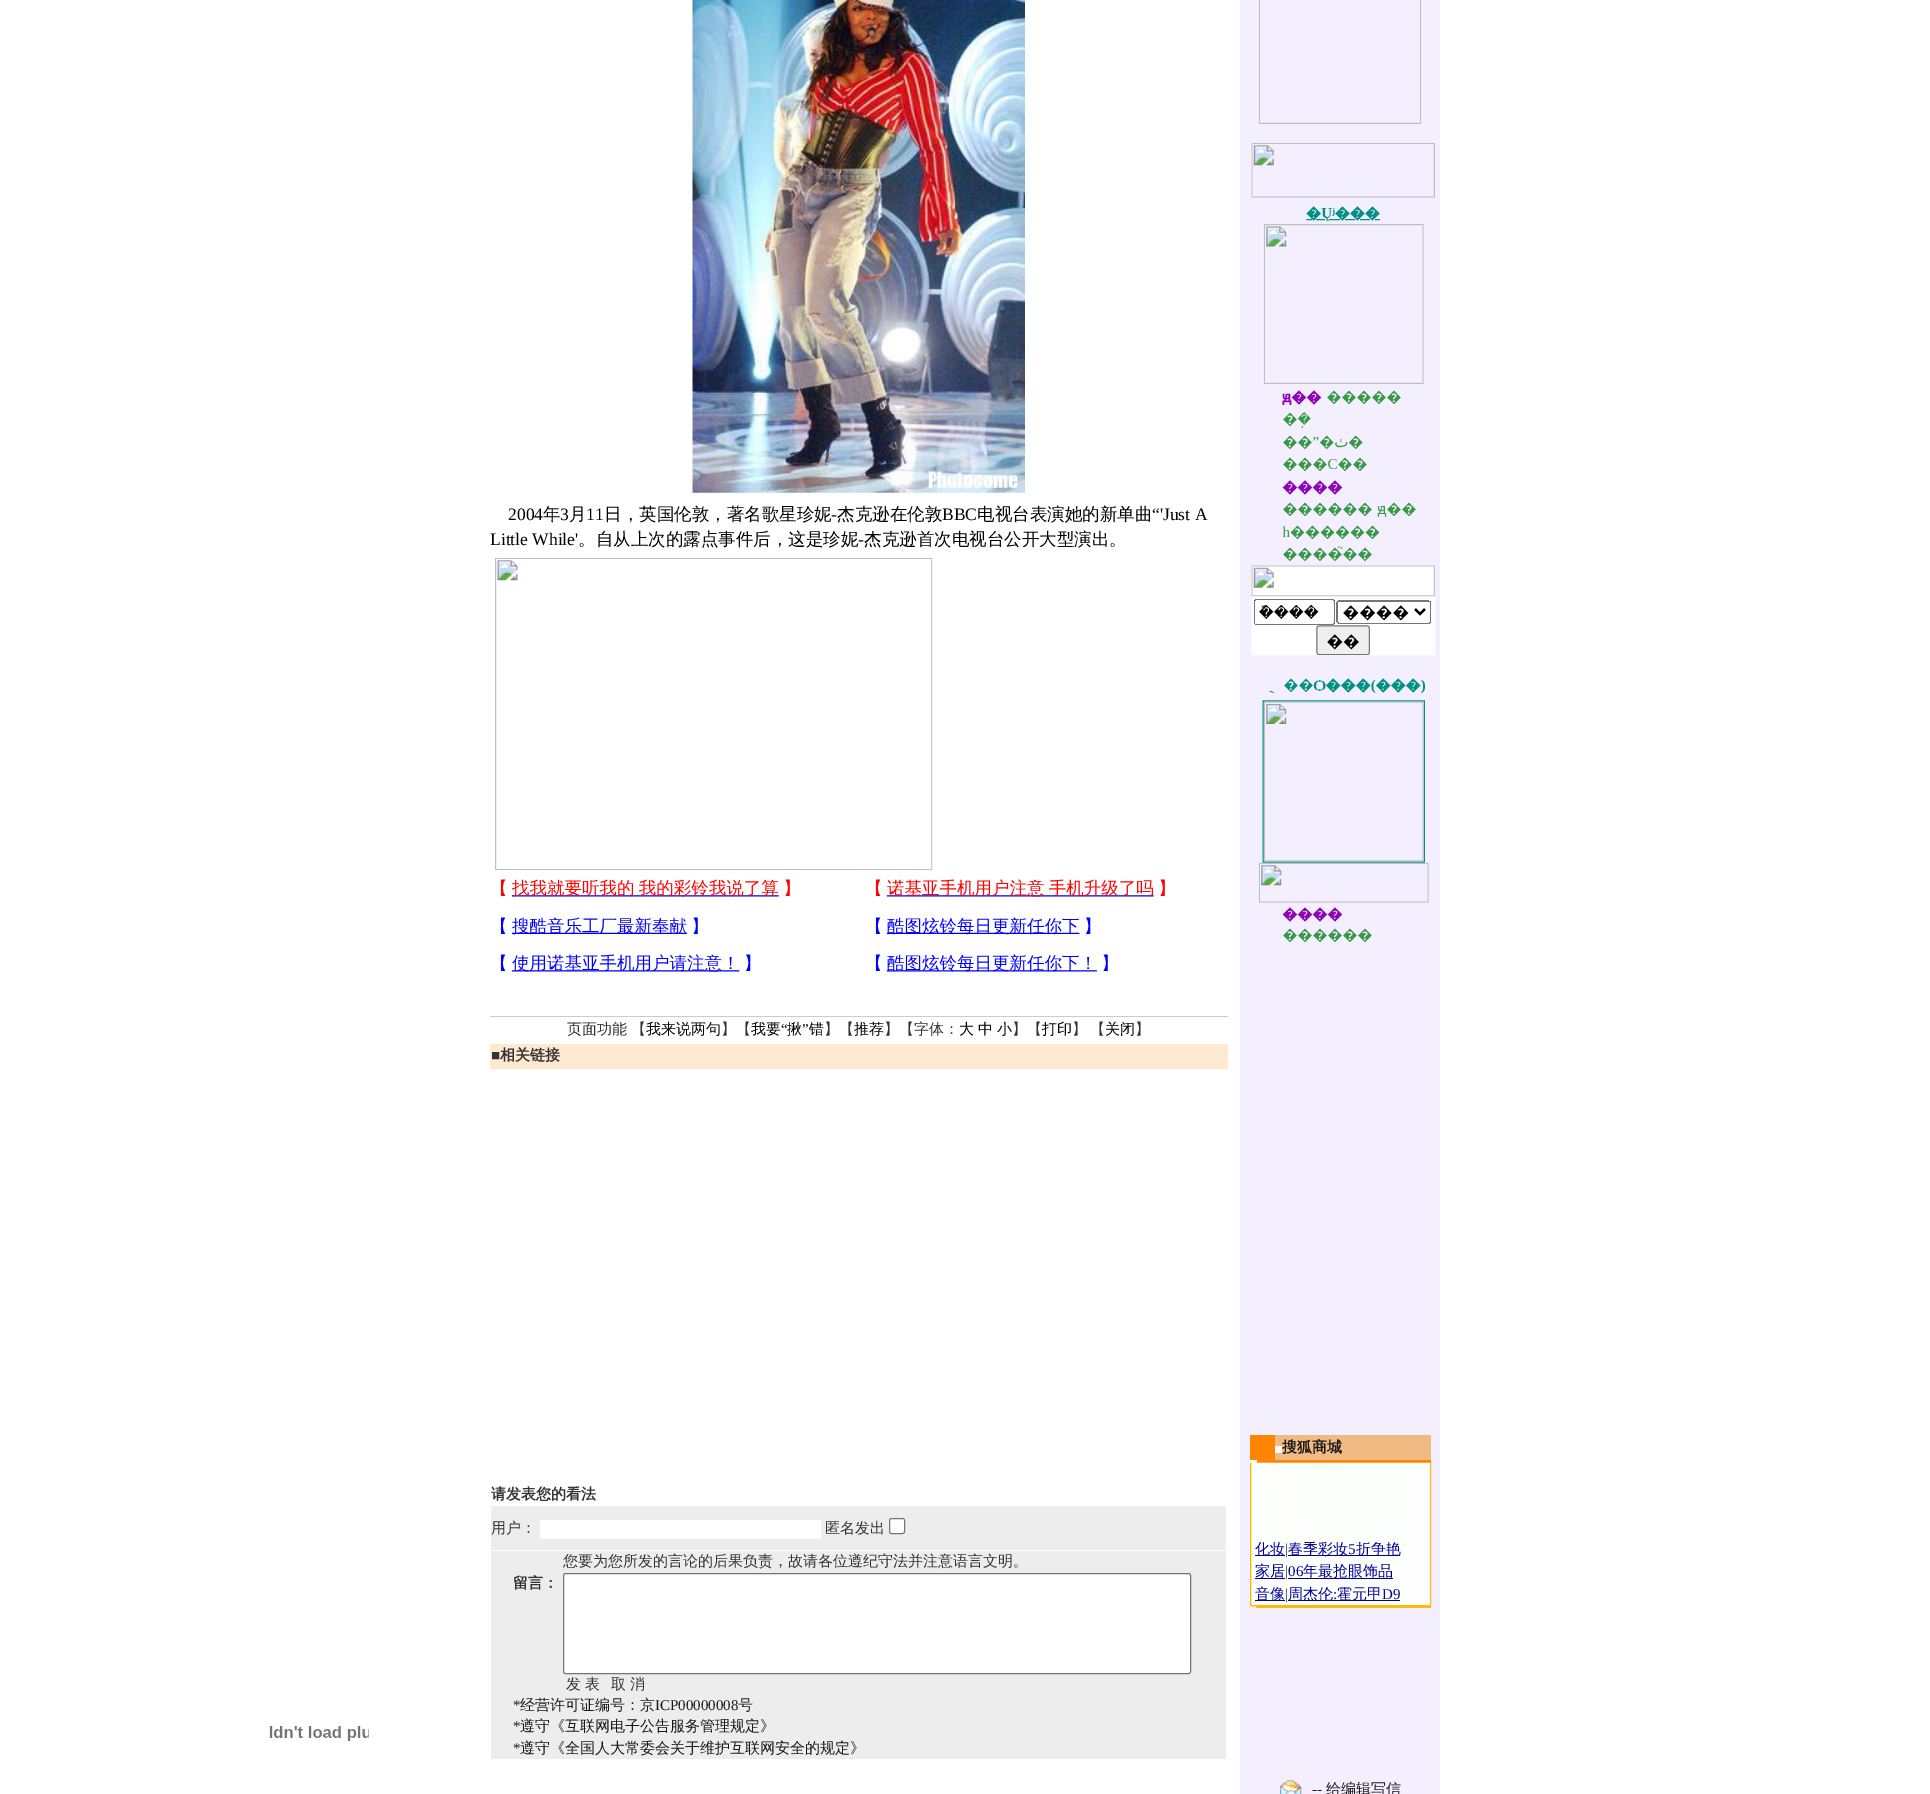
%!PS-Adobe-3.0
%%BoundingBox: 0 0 1930 1794
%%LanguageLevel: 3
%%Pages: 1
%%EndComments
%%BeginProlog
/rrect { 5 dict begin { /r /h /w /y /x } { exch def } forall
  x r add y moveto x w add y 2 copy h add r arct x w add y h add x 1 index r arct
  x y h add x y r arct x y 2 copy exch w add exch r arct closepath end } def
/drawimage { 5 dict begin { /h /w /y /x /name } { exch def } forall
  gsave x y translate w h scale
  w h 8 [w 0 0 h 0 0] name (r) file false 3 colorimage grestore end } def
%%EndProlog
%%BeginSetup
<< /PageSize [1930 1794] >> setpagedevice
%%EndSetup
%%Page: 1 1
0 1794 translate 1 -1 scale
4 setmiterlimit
1 setgray
0 0 1930 1794 rectfill
(images/1.raw) 269 1726 100 15 drawimage
(images/2.raw) 692 0 333 493 drawimage
(images/3.raw) 495 557 438 314 drawimage
(images/4.raw) 500 879 665 56 drawimage
(images/5.raw) 500 954 608 18 drawimage
0.8 setgray
490 1016 738 1 rectfill
1 0.914 0.816 setrgbcolor
490 1044 738 25 rectfill
0.929 setgray
491 1506 735 44 rectfill
1 setgray
540 1520 281 19 rectfill
889.5 1518.5 15 15 2 rrect gsave fill grestore
0.463 setgray
stroke
0.929 setgray
491 1551 735 208 rectfill
1 setgray
563.5 1573.5 627 100 2 rrect gsave fill grestore
0.463 setgray
stroke
0.953 0.937 1 setrgbcolor
1240 0 200 1794 rectfill
(images/6.raw) 1258 0 164 124 drawimage
(images/7.raw) 1251 143 184 800 drawimage
0.996 0.522 0.012 setrgbcolor
1250 1435 25 25 rectfill
0.941 0.729 0.51 setrgbcolor
1275 1435 156 25 rectfill
1 setgray
1275 1446 7 7 rectfill
0.996 0.522 0.012 setrgbcolor
1250 1460 181 3 rectfill
(images/8.raw) 1250 1462 182 144 drawimage
1 setgray
1250 1460 7 3 rectfill
0 0 0.6 setrgbcolor
1255 1555 30 1 rectfill
1288 1555 112 1 rectfill
1255 1578 30 1 rectfill
1288 1578 105 1 rectfill
1255 1600 30 1 rectfill
1288 1600 112 1 rectfill
1 0.729 0.012 setrgbcolor
1250 1605 181 3 rectfill
(images/9.raw) 1250 1606 7 2 drawimage
(images/10.raw) 1280 1780 22 14 drawimage
/LiberationSerif-Regular [17.5 0 0 -17.5 0 0] selectfont
0 setgray
508 520 moveto (2004) show
/WenQuanYiZenHei-Medium [17.5 0 0 -17.5 0 0] selectfont
543 520 moveto (年) show
/LiberationSerif-Regular [17.5 0 0 -17.5 0 0] selectfont
560 520 moveto (3) show
/WenQuanYiZenHei-Medium [17.5 0 0 -17.5 0 0] selectfont
569 520 moveto (月) show
/LiberationSerif-Regular [17.5 0 0 -17.5 0 0] selectfont
586 520 moveto (11) show
/WenQuanYiZenHei-Medium [17.5 0 0 -17.5 0 0] selectfont
604 520 moveto (日，英国伦敦，著名歌星珍妮) show
/LiberationSerif-Regular [17.5 0 0 -17.5 0 0] selectfont
831 520 moveto (-) show
/WenQuanYiZenHei-Medium [17.5 0 0 -17.5 0 0] selectfont
837 520 moveto (杰克逊在伦敦) show
/LiberationSerif-Regular [17.5 0 0 -17.5 0 0] selectfont
942 520 moveto (BBC) show
/WenQuanYiZenHei-Medium [17.5 0 0 -17.5 0 0] selectfont
977 520 moveto (电视台表演她的新单曲) show
/LiberationSerif-Regular [17.5 0 0 -17.5 0 0] selectfont
1152 520 moveto (“'Just A) show
490 545 moveto (Little While') show
/WenQuanYiZenHei-Medium [17.5 0 0 -17.5 0 0] selectfont
578 545 moveto (。自从上次的露点事件后，这是珍妮) show
/LiberationSerif-Regular [17.5 0 0 -17.5 0 0] selectfont
858 545 moveto (-) show
/WenQuanYiZenHei-Medium [17.5 0 0 -17.5 0 0] selectfont
864 545 moveto (杰克逊首次电视台公开大型演出。) show
/WenQuanYiZenHei-Medium [15 0 0 -15 0 0] selectfont
0.2 setgray
567 1034 moveto (页面功能) show
631 1034 moveto (【) show
0 setgray
646 1034 moveto (我来说两句) show
0.2 setgray
721 1034 moveto (】【) show
0 setgray
751 1034 moveto (我要) show
/LiberationSerif-Regular [15 0 0 -15 0 0] selectfont
781 1034 moveto (“) show
/WenQuanYiZenHei-Medium [15 0 0 -15 0 0] selectfont
787 1034 moveto (揪) show
/LiberationSerif-Regular [15 0 0 -15 0 0] selectfont
802 1034 moveto (”) show
/WenQuanYiZenHei-Medium [15 0 0 -15 0 0] selectfont
809 1034 moveto (错) show
0.2 setgray
824 1034 moveto (】【) show
0 setgray
854 1034 moveto (推荐) show
0.2 setgray
884 1034 moveto (】【字体：) show
0 setgray
959 1034 moveto (大) show
978 1034 moveto (中) show
997 1034 moveto (小) show
0.2 setgray
1012 1034 moveto (】【) show
0 setgray
1042 1034 moveto (打印) show
0.2 setgray
1072 1034 moveto -1 0 32 (】 【) widthshow
0 setgray
1105 1034 moveto (关闭) show
0.2 setgray
1135 1034 moveto (】) show
/LiberationSerif-Regular [15 0 0 -15 0 0] selectfont
491 1060 moveto (■) show
/WenQuanYiZenHei-Bold [15 0 0 -15 0 0] selectfont
500 1060 moveto (相关链接) show
491 1499 moveto (请发表您的看法) show
/WenQuanYiZenHei-Medium [15 0 0 -15 0 0] selectfont
491 1533 moveto (用户：) show
825 1533 moveto (匿名发出) show
563 1566 moveto (您要为您所发的言论的后果负责，故请各位遵纪守法并注意语言文明。) show
/WenQuanYiZenHei-Bold [15 0 0 -15 0 0] selectfont
513 1588 moveto (留言：) show
/WenQuanYiZenHei-Medium [15 0 0 -15 0 0] selectfont
566 1689 moveto (发 表) show
611 1689 moveto (取 消) show
/LiberationSerif-Regular [15 0 0 -15 0 0] selectfont
0.098 setgray
513 1710 moveto (*) show
/WenQuanYiZenHei-Medium [15 0 0 -15 0 0] selectfont
520 1710 moveto (经营许可证编号：京) show
/LiberationSerif-Regular [15 0 0 -15 0 0] selectfont
655 1710 moveto (ICP00000008) show
/WenQuanYiZenHei-Medium [15 0 0 -15 0 0] selectfont
738 1710 moveto (号) show
/LiberationSerif-Regular [15 0 0 -15 0 0] selectfont
513 1731 moveto (*) show
/WenQuanYiZenHei-Medium [15 0 0 -15 0 0] selectfont
520 1731 moveto (遵守《互联网电子公告服务管理规定》) show
/LiberationSerif-Regular [15 0 0 -15 0 0] selectfont
513 1753 moveto (*) show
/WenQuanYiZenHei-Medium [15 0 0 -15 0 0] selectfont
520 1753 moveto (遵守《全国人大常委会关于维护互联网安全的规定》) show
/WenQuanYiZenHei-Bold [15 0 0 -15 0 0] selectfont
1282 1452 moveto (搜狐商城) show
/WenQuanYiZenHei-Medium [15 0 0 -15 0 0] selectfont
0 0 0.6 setrgbcolor
1255 1554 moveto (化妆) show
/LiberationSerif-Regular [15 0 0 -15 0 0] selectfont
0.2 setgray
1285 1554 moveto (|) show
/WenQuanYiZenHei-Medium [15 0 0 -15 0 0] selectfont
0 0 0.6 setrgbcolor
1288 1554 moveto (春季彩妆) show
/LiberationSerif-Regular [15 0 0 -15 0 0] selectfont
1348 1554 moveto (5) show
/WenQuanYiZenHei-Medium [15 0 0 -15 0 0] selectfont
1356 1554 moveto (折争艳) show
1255 1576 moveto (家居) show
/LiberationSerif-Regular [15 0 0 -15 0 0] selectfont
0.2 setgray
1285 1576 moveto (|) show
0 0 0.6 setrgbcolor
1288 1576 moveto (06) show
/WenQuanYiZenHei-Medium [15 0 0 -15 0 0] selectfont
1303 1576 moveto (年最抢眼饰品) show
1255 1599 moveto (音像) show
/LiberationSerif-Regular [15 0 0 -15 0 0] selectfont
0.2 setgray
1285 1599 moveto (|) show
/WenQuanYiZenHei-Medium [15 0 0 -15 0 0] selectfont
0 0 0.6 setrgbcolor
1288 1599 moveto (周杰伦) show
/LiberationSerif-Regular [15 0 0 -15 0 0] selectfont
1333 1599 moveto (:) show
/WenQuanYiZenHei-Medium [15 0 0 -15 0 0] selectfont
1337 1599 moveto (霍元甲) show
/LiberationSerif-Regular [15 0 0 -15 0 0] selectfont
1382 1599 moveto (D9) show
0.098 setgray
1312 1794 moveto (--) show
/WenQuanYiZenHei-Medium [15 0 0 -15 0 0] selectfont
1326 1794 moveto (给编辑写信) show
showpage
%%EOF
